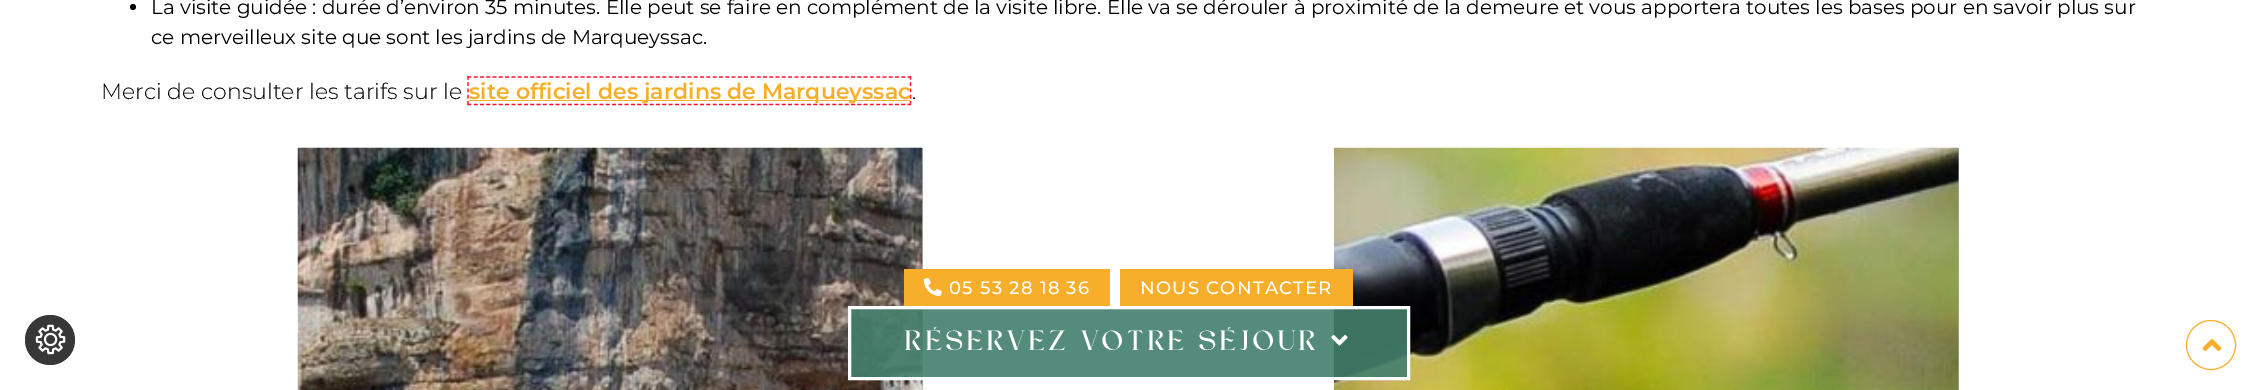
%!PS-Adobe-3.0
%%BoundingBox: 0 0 2256 390
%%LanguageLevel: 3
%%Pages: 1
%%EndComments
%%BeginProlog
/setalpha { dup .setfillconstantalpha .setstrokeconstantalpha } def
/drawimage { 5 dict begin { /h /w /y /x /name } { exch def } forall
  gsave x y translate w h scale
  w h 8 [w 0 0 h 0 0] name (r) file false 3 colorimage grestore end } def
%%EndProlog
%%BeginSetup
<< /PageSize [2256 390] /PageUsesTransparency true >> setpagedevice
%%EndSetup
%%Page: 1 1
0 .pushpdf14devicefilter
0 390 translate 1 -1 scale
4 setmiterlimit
1 setgray
0 0 2256 390 rectfill
0 setgray
newpath 133 7 3 0 360 arc closepath fill
1 0.067 0.169 setrgbcolor
1.2 setlinewidth
[3.75 2.54] 0 setdash
newpath 467.5 77 moveto 911 77 lineto stroke
[3.75 2.5] 0 setdash
newpath 910.5 76 moveto 910.5 105 lineto stroke
[3.75 2.54] 0 setdash
newpath 467.5 104.5 moveto 911 104.5 lineto stroke
[3.75 2.5] 0 setdash
newpath 468 76 moveto 468 105 lineto stroke
0.969 0.682 0.169 setrgbcolor
469 100 441 1 rectfill
0.655 0.761 0.725 setrgbcolor
922 148 1 242 rectfill
(images/1.raw) 297 147 626 243 drawimage
1958 148 1 242 rectfill
(images/2.raw) 1333 147 626 243 drawimage
0.216 setgray
newpath 50 340 25 0 360 arc closepath fill
(images/3.raw) 35 324 31 31 drawimage
0.969 0.682 0.169 setrgbcolor
904 269 206 37 rectfill
(images/4.raw) 923 278 19 18 drawimage
1120 269 233 37 rectfill
0.9 setalpha
0.263 0.494 0.42 setrgbcolor
newpath 849.5 307.5 moveto 1408.5 307.5 lineto 1408.5 378.5 lineto 849.5 378.5 lineto closepath fill
1 setalpha
1 setgray
3 setlinewidth
[] 0 setdash
newpath 849.5 307.5 moveto 1408.5 307.5 lineto 1408.5 378.5 lineto 849.5 378.5 lineto closepath stroke
(images/5.raw) 1331 335 17 11 drawimage
0.969 0.682 0.169 setrgbcolor
1 setlinewidth
newpath 2211 345 24.5 0 360 arc closepath stroke
(images/6.raw) 2202 339 20 12 drawimage
/Montserrat-Regular [20 0 0 -20 0 0] selectfont
0 setgray
151 14 moveto (La visite guidée : durée d’environ 35 minutes. Elle peut se faire en complément de la visite libre. Elle va se dérouler à proximité de la demeure et vous apportera toutes les bases pour en savoir plus sur) show
151 44 moveto (ce merveilleux site que sont les jardins de Marqueyssac.) show
/Montserrat-Light [22 0 0 -22 0 0] selectfont
101 99 moveto (Merci de consulter les tarifs sur le) show
/Montserrat-SemiBold [22 0 0 -22 0 0] selectfont
0.969 0.682 0.169 setrgbcolor
469 99 moveto (site officiel des jardins de Marqueyssac) show
/Montserrat-Light [22 0 0 -22 0 0] selectfont
0 setgray
912 99 moveto (.) show
/Montserrat-Medium [18 0 0 -18 0 0] selectfont
1 setgray
949 294 moveto 1.25 0 (05 53 28 18 36) ashow
1140 294 moveto 1.25 0 (NOUS CONTACTER) ashow
/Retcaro-Regular [26 0 0 -26 0 0] selectfont
905 350 moveto 3.75 0 (RÉSERVEZ VOTRE SÉJOUR) ashow
.poppdf14devicefilter showpage
%%EOF
